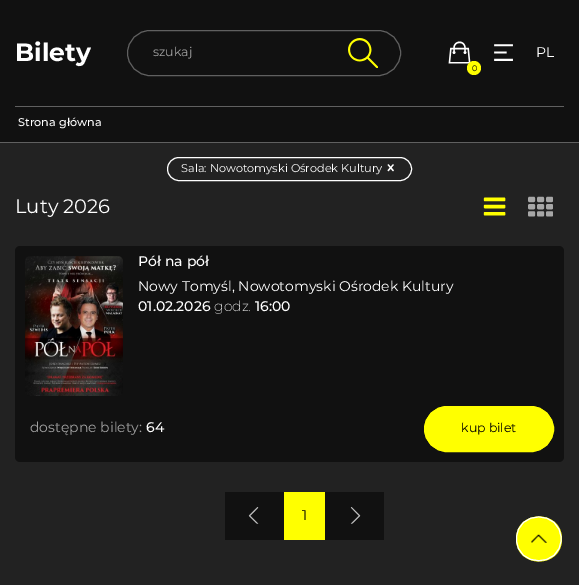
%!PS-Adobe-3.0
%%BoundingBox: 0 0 579 585
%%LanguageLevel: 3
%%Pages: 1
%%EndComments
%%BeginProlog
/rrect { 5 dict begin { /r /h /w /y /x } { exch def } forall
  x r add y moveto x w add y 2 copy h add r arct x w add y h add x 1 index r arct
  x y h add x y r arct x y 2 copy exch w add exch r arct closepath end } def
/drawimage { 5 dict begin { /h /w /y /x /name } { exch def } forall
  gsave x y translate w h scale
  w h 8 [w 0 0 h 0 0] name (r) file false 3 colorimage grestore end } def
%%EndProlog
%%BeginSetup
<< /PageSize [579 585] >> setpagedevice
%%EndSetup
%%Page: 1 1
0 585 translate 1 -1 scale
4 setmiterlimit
0.133 setgray
0 0 579 585 rectfill
0.067 setgray
0 0 579 142 rectfill
0.376 setgray
0 142 579 1 rectfill
127.5 30.5 273 45 22.5 rrect stroke
(images/1.raw) 348 38 30 30 drawimage
(images/2.raw) 494 44 19 17 drawimage
(images/3.raw) 448 41 23 23 drawimage
1 1 0 setrgbcolor
newpath 474 68 7 0 360 arc closepath fill
0.376 setgray
15 106 549 1 rectfill
1 setgray
167.5 157.5 244 23 11.5 rrect stroke
(images/4.raw) 387 164 7 8 drawimage
(images/5.raw) 483 197 23 19 drawimage
(images/6.raw) 528 196 25 21 drawimage
0.067 setgray
15 246 549 216 5 rrect fill
(images/7.raw) 25 256 98 140 drawimage
1 1 0 setrgbcolor
424.5 406.5 129 45 22.5 rrect gsave fill grestore
stroke
0.067 setgray
225 492 159 48 rectfill
(images/8.raw) 248 507 11 17 drawimage
1 1 0 setrgbcolor
284 492 41 48 rectfill
(images/9.raw) 350 507 11 17 drawimage
newpath 562 539 moveto 562 569 516 569 516 539 curveto 516 509 562 509 562 539 curveto closepath fill
1 setgray
newpath 561 539 moveto 561 568 516.5 568 516.5 539 curveto 516.5 509.5 561 509.5 561 539 curveto closepath stroke
(images/10.raw) 531 534 16 9 drawimage
/Montserrat-Thin [25 0 0 -25 0 0] selectfont
15 61 moveto (Bilety) show
/Montserrat-Regular [12.5 0 0 -12.5 0 0] selectfont
0.627 setgray
153 56 moveto (szukaj) show
/Montserrat-Regular [14 0 0 -14 0 0] selectfont
1 setgray
536 57 moveto (PL) show
/Montserrat-Regular [8 0 0 -8 0 0] selectfont
0 setgray
472 71 moveto (0) show
/Montserrat-Medium [11.25 0 0 -11.25 0 0] selectfont
1 setgray
18 126 moveto (Strona główna) show
/Montserrat-Regular [11.25 0 0 -11.25 0 0] selectfont
181 172 moveto (Sala: Nowotomyski Ośrodek Kultury) show
/Montserrat-Regular [19.5 0 0 -19.5 0 0] selectfont
15 213 moveto (Luty 2026) show
/Montserrat-Medium [14 0 0 -14 0 0] selectfont
138 266 moveto (Pół na pół) show
/Montserrat-Regular [14 0 0 -14 0 0] selectfont
138 291 moveto (Nowy Tomyśl, Nowotomyski Ośrodek Kultury) show
/Montserrat-Medium [14 0 0 -14 0 0] selectfont
138 311 moveto (01.02.2026) show
/Montserrat-Light [14 0 0 -14 0 0] selectfont
214 311 moveto (godz.) show
/Montserrat-Medium [14 0 0 -14 0 0] selectfont
255 311 moveto (16:00) show
/Montserrat-Regular [14 0 0 -14 0 0] selectfont
0.627 setgray
30 432 moveto (dostępne bilety:) show
/Montserrat-Medium [14 0 0 -14 0 0] selectfont
1 setgray
146 432 moveto (64) show
/Montserrat-Regular [12.5 0 0 -12.5 0 0] selectfont
0 setgray
461 432 moveto (kup bilet) show
/Montserrat-Regular [14 0 0 -14 0 0] selectfont
302 520 moveto (1) show
showpage
%%EOF
